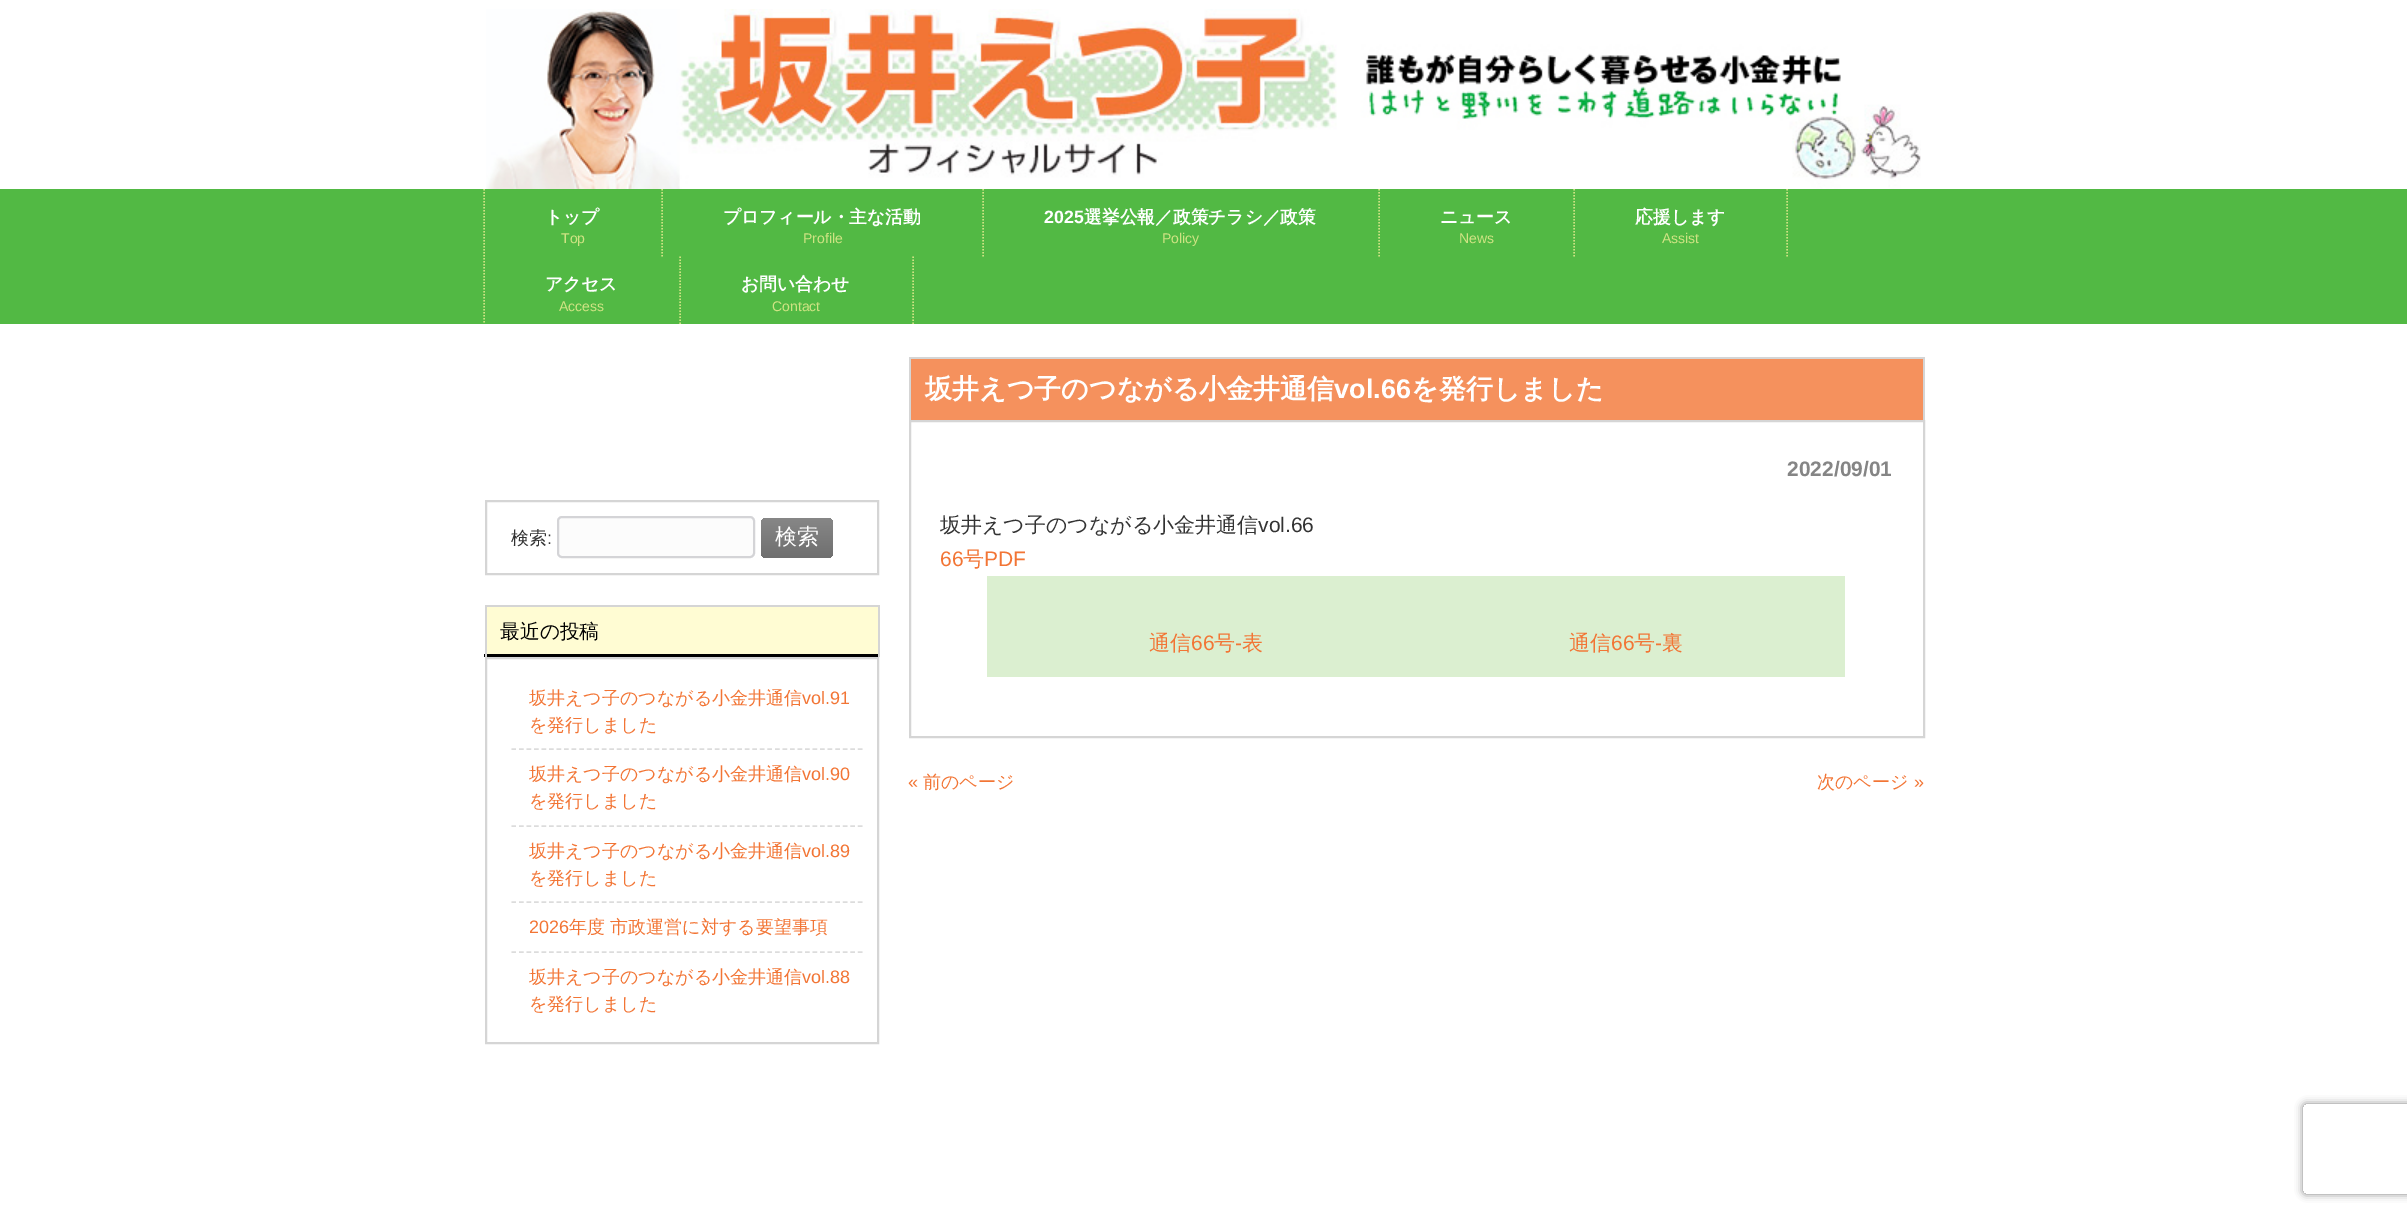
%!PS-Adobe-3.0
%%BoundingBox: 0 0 2407 1215
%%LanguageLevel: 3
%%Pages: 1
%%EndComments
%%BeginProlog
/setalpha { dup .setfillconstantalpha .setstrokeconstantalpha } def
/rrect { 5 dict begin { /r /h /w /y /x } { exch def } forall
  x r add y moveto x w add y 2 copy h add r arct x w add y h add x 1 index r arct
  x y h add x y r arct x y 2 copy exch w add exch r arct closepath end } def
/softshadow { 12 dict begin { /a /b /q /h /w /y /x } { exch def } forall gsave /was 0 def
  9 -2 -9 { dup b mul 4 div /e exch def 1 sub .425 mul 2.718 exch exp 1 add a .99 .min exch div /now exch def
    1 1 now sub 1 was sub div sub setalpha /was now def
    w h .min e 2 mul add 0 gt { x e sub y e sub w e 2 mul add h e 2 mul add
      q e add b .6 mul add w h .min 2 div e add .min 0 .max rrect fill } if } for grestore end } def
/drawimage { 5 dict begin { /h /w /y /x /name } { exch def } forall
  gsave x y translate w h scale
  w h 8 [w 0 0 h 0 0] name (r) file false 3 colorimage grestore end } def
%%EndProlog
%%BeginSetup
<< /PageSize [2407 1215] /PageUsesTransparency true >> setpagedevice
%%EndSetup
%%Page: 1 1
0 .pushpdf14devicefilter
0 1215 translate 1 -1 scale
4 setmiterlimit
1 setgray
0 0 2407 1215 rectfill
(images/1.raw) 486 9 1435 180 drawimage
0.322 0.725 0.267 setrgbcolor
0 189 2407 135 rectfill
0.812 0.89 0.514 setrgbcolor
1.5 setlinewidth
[1.5 1.5] 0 setdash
newpath 484 189 moveto 484 324 lineto stroke
newpath 662 189 moveto 662 256.5 lineto stroke
newpath 983 189 moveto 983 256.5 lineto stroke
newpath 1379 189 moveto 1379 256.5 lineto stroke
newpath 1574 189 moveto 1574 256.5 lineto stroke
newpath 1787 189 moveto 1787 256.5 lineto stroke
newpath 680 256.5 moveto 680 324 lineto stroke
newpath 913 256.5 moveto 913 324 lineto stroke
0.835 setgray
2 setlinewidth
[] 0 setdash
486 501 392 73 rectstroke
0.988 setgray
558 517 196 40 4 rrect gsave fill grestore
0.831 0.831 0.843 setrgbcolor
stroke
gsave 761 518 72 40 5 rrect clip newpath
<< /ShadingType 2 /ColorSpace /DeviceRGB /Coords [797 518 797 558] /Extend [true true] /Function << /FunctionType 2 /Domain [0 1] /C0 [0.529 0.529 0.529] /C1 [0.435 0.435 0.435] /N 1 >> >> shfill grestore
1 0.988 0.827 setrgbcolor
487 607 391 47 rectfill
0 setgray
484 654 395 3 rectfill
0.835 setgray
485 605 394 2 rectfill
878 605 2 52 rectfill
485 605 2 52 rectfill
486 658 392 385 rectstroke
0.863 setgray
1.5 setlinewidth
[4.5 3.03] 0 setdash
newpath 511.5 749 moveto 862.5 749 lineto stroke
newpath 511.5 826 moveto 862.5 826 lineto stroke
newpath 511.5 902 moveto 862.5 902 lineto stroke
newpath 511.5 952 moveto 862.5 952 lineto stroke
0.961 0.569 0.365 setrgbcolor
911 359 1012 61 rectfill
0.835 setgray
909 357 1016 2 rectfill
1923 357 2 63 rectfill
909 357 2 63 rectfill
2 setlinewidth
[] 0 setdash
910 421 1014 316 rectstroke
0.859 0.937 0.816 setrgbcolor
987 576 858 101 rectfill
gsave
newpath 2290 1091 moveto 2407 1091 lineto 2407 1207 lineto 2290 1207 lineto closepath 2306 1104 moveto 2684 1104 lineto 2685.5 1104 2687 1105.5 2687 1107 curveto 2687 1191 lineto 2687 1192.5 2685.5 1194 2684 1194 curveto 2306 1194 lineto 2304.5 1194 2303 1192.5 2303 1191 curveto 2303 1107 lineto 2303 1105.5 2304.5 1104 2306 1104 curveto closepath eoclip newpath
0.502 setgray
2303 1104 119 90 3 4 1 softshadow
grestore
/WenQuanYiZenHei-Bold [17.75 0 0 -17.75 0 0] selectfont
1 setgray
545 223 moveto (トップ) show
/LiberationSans-Regular [14 0 0 -14 0 0] selectfont
0.812 0.89 0.514 setrgbcolor
561 243 moveto (Top) show
/WenQuanYiZenHei-Bold [17.75 0 0 -17.75 0 0] selectfont
1 setgray
723 223 moveto (プロフィール・主な活動) show
/LiberationSans-Regular [14 0 0 -14 0 0] selectfont
0.812 0.89 0.514 setrgbcolor
803 243 moveto (Profile) show
/LiberationSans-Bold [17.75 0 0 -17.75 0 0] selectfont
1 setgray
1044 223 moveto (2025) show
/WenQuanYiZenHei-Bold [17.75 0 0 -17.75 0 0] selectfont
1084 223 moveto (選挙公報／政策チラシ／政策) show
/LiberationSans-Regular [14 0 0 -14 0 0] selectfont
0.812 0.89 0.514 setrgbcolor
1162 243 moveto (Policy) show
/WenQuanYiZenHei-Bold [17.75 0 0 -17.75 0 0] selectfont
1 setgray
1440 223 moveto (ニュース) show
/LiberationSans-Regular [14 0 0 -14 0 0] selectfont
0.812 0.89 0.514 setrgbcolor
1459 243 moveto (News) show
/WenQuanYiZenHei-Bold [17.75 0 0 -17.75 0 0] selectfont
1 setgray
1635 223 moveto (応援します) show
/LiberationSans-Regular [14 0 0 -14 0 0] selectfont
0.812 0.89 0.514 setrgbcolor
1662 243 moveto (Assist) show
/WenQuanYiZenHei-Bold [17.75 0 0 -17.75 0 0] selectfont
1 setgray
545 290 moveto (アクセス) show
/LiberationSans-Regular [14 0 0 -14 0 0] selectfont
0.812 0.89 0.514 setrgbcolor
559 311 moveto (Access) show
/WenQuanYiZenHei-Bold [17.75 0 0 -17.75 0 0] selectfont
1 setgray
741 290 moveto (お問い合わせ) show
/LiberationSans-Regular [14 0 0 -14 0 0] selectfont
0.812 0.89 0.514 setrgbcolor
772 311 moveto (Contact) show
/WenQuanYiZenHei-Medium [18 0 0 -18 0 0] selectfont
0.2 setgray
511 544 moveto (検索) show
/LiberationSans-Regular [18 0 0 -18 0 0] selectfont
547 544 moveto (:) show
/WenQuanYiZenHei-Medium [22 0 0 -22 0 0] selectfont
1 setgray
775 544 moveto (検索) show
/WenQuanYiZenHei-Medium [19.75 0 0 -19.75 0 0] selectfont
0 setgray
500 638 moveto (最近の投稿) show
/WenQuanYiZenHei-Medium [18 0 0 -18 0 0] selectfont
0.949 0.459 0.208 setrgbcolor
529 704 moveto (坂井えつ子のつながる小金井通信) show
/LiberationSans-Regular [18 0 0 -18 0 0] selectfont
802 704 moveto (vol.91) show
/WenQuanYiZenHei-Medium [18 0 0 -18 0 0] selectfont
529 731 moveto (を発行しました) show
529 780 moveto (坂井えつ子のつながる小金井通信) show
/LiberationSans-Regular [18 0 0 -18 0 0] selectfont
802 780 moveto (vol.90) show
/WenQuanYiZenHei-Medium [18 0 0 -18 0 0] selectfont
529 807 moveto (を発行しました) show
529 857 moveto (坂井えつ子のつながる小金井通信) show
/LiberationSans-Regular [18 0 0 -18 0 0] selectfont
802 857 moveto (vol.89) show
/WenQuanYiZenHei-Medium [18 0 0 -18 0 0] selectfont
529 884 moveto (を発行しました) show
/LiberationSans-Regular [18 0 0 -18 0 0] selectfont
529 933 moveto (2026) show
/WenQuanYiZenHei-Medium [18 0 0 -18 0 0] selectfont
569 933 moveto (年度 市政運営に対する要望事項) show
529 983 moveto (坂井えつ子のつながる小金井通信) show
/LiberationSans-Regular [18 0 0 -18 0 0] selectfont
802 983 moveto (vol.88) show
/WenQuanYiZenHei-Medium [18 0 0 -18 0 0] selectfont
529 1010 moveto (を発行しました) show
/WenQuanYiZenHei-Bold [27 0 0 -27 0 0] selectfont
1 setgray
925 398 moveto (坂井えつ子のつながる小金井通信) show
/LiberationSans-Bold [27 0 0 -27 0 0] selectfont
1334 398 moveto (vol.66) show
/WenQuanYiZenHei-Bold [27 0 0 -27 0 0] selectfont
1411 398 moveto (を発行しました) show
/LiberationSans-Bold [21 0 0 -21 0 0] selectfont
0.522 setgray
1787 476 moveto (2022/09/01) show
/WenQuanYiZenHei-Medium [21 0 0 -21 0 0] selectfont
0.2 setgray
940 532 moveto (坂井えつ子のつながる小金井通信) show
/LiberationSans-Regular [21 0 0 -21 0 0] selectfont
1258 532 moveto (vol.66) show
0.949 0.459 0.208 setrgbcolor
940 566 moveto (66) show
/WenQuanYiZenHei-Medium [21 0 0 -21 0 0] selectfont
963 566 moveto (号) show
/LiberationSans-Regular [21 0 0 -21 0 0] selectfont
984 566 moveto (PDF) show
/WenQuanYiZenHei-Medium [21 0 0 -21 0 0] selectfont
1149 650 moveto (通信) show
/LiberationSans-Regular [21 0 0 -21 0 0] selectfont
1191 650 moveto (66) show
/WenQuanYiZenHei-Medium [21 0 0 -21 0 0] selectfont
1214 650 moveto (号) show
/LiberationSans-Regular [21 0 0 -21 0 0] selectfont
1235 650 moveto (-) show
/WenQuanYiZenHei-Medium [21 0 0 -21 0 0] selectfont
1242 650 moveto (表) show
1569 650 moveto (通信) show
/LiberationSans-Regular [21 0 0 -21 0 0] selectfont
1611 650 moveto (66) show
/WenQuanYiZenHei-Medium [21 0 0 -21 0 0] selectfont
1634 650 moveto (号) show
/LiberationSans-Regular [21 0 0 -21 0 0] selectfont
1655 650 moveto (-) show
/WenQuanYiZenHei-Medium [21 0 0 -21 0 0] selectfont
1662 650 moveto (裏) show
/LiberationSans-Regular [18 0 0 -18 0 0] selectfont
908 788 moveto («) show
/WenQuanYiZenHei-Medium [18 0 0 -18 0 0] selectfont
923 788 moveto (前のページ) show
1817 788 moveto (次のページ) show
/LiberationSans-Regular [18 0 0 -18 0 0] selectfont
1914 788 moveto (») show
.poppdf14devicefilter showpage
%%EOF
